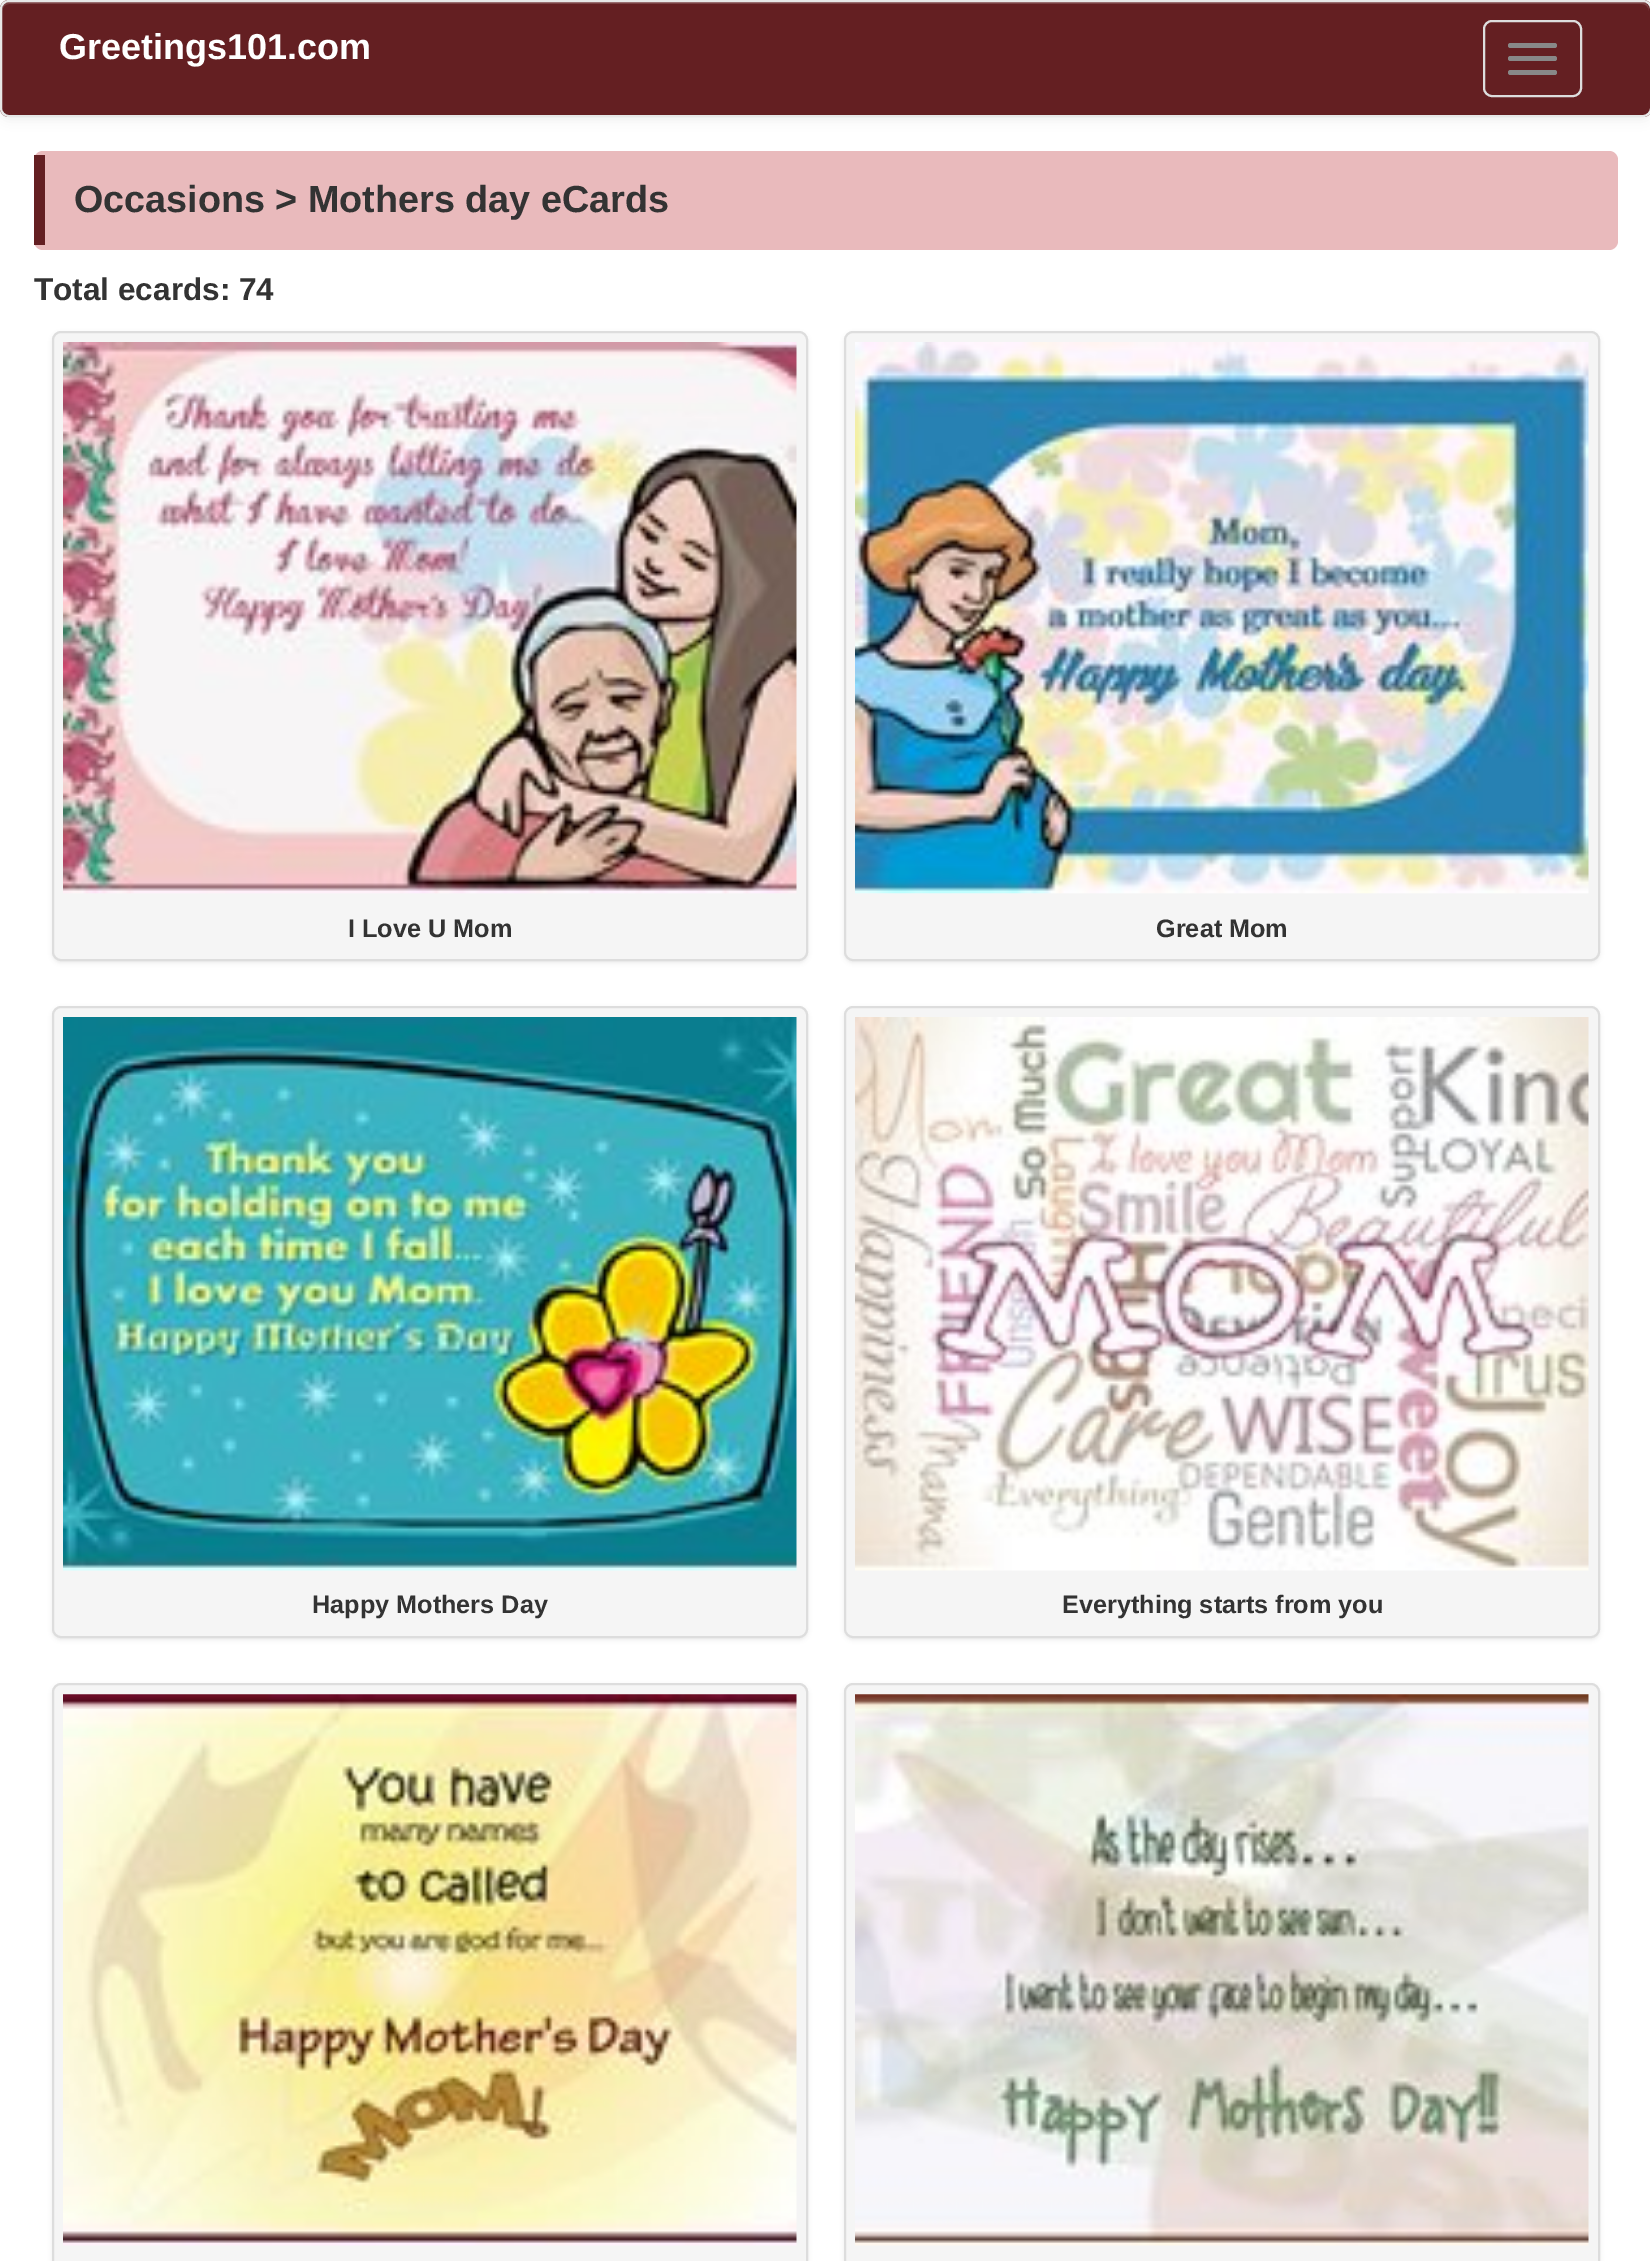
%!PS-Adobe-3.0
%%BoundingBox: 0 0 1650 2261
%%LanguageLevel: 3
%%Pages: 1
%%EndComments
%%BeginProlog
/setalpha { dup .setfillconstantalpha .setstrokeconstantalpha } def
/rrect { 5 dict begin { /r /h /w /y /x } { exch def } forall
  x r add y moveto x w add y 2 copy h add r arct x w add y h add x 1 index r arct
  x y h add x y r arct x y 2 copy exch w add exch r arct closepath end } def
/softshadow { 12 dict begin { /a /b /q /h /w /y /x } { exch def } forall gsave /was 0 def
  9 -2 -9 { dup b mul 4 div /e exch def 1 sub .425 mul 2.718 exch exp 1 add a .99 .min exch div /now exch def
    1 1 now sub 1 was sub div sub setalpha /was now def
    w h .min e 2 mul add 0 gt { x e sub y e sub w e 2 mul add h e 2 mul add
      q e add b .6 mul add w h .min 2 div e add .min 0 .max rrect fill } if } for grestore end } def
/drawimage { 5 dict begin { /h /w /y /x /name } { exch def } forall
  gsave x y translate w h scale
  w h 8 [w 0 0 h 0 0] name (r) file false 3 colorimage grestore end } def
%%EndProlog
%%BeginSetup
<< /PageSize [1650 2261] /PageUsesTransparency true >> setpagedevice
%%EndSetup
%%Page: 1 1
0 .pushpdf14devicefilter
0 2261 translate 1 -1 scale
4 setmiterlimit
1 setgray
0 0 1650 2261 rectfill
0 setgray
0 2 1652 117 9 5.5 0.07 softshadow
0.392 0.122 0.133 setrgbcolor
0 0 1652 117 9 rrect fill
0.482 0.255 0.263 setrgbcolor
newpath 9 4 moveto 1642 4 lineto 1646 4 1649 8 1649 11 curveto 1649 7 1647 2 1642 2 curveto 9 2 lineto 4 2 2 7 2 11 curveto 2 8 5 4 9 4 curveto closepath fill
0.906 setgray
2 setlinewidth
1 1 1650 115 8 rrect stroke
0.867 setgray
1484 21 97 75 8 rrect stroke
0.533 setgray
1508 43 49 5 2.5 rrect fill
1508 56 49 5 2.5 rrect fill
1508 70 49 5 2.5 rrect fill
0.914 0.729 0.737 setrgbcolor
34 151 1584 99 9 rrect fill
0.392 0.122 0.133 setrgbcolor
34 155 11 90 rectfill
0 setgray
52 333 756 630 9 2 0.07 softshadow
0.961 setgray
53 332 754 628 8 rrect gsave fill grestore
0.867 setgray
stroke
(images/1.raw) 63 342 734 552 drawimage
0 setgray
844 333 756 630 9 2 0.07 softshadow
0.961 setgray
845 332 754 628 8 rrect gsave fill grestore
0.867 setgray
stroke
(images/2.raw) 855 342 734 552 drawimage
0 setgray
52 1008 756 632 9 2 0.07 softshadow
0.961 setgray
53 1007 754 630 8 rrect gsave fill grestore
0.867 setgray
stroke
(images/3.raw) 63 1017 734 554 drawimage
0 setgray
844 1008 756 632 9 2 0.07 softshadow
0.961 setgray
845 1007 754 630 8 rrect gsave fill grestore
0.867 setgray
stroke
(images/4.raw) 855 1017 734 554 drawimage
0 setgray
52 1685 756 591 9 2 0.07 softshadow
0.961 setgray
53 1684 754 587 8 rrect gsave fill grestore
0.867 setgray
stroke
(images/5.raw) 63 1694 734 552 drawimage
0 setgray
844 1685 756 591 9 2 0.07 softshadow
0.961 setgray
845 1684 754 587 8 rrect gsave fill grestore
0.867 setgray
stroke
(images/6.raw) 855 1694 734 552 drawimage
/LiberationSans-Bold [36 0 0 -36 0 0] selectfont
1 setgray
59 59 moveto (Greetings101.com) show
/LiberationSans-Bold [37.75 0 0 -37.75 0 0] selectfont
0.2 setgray
74 212 moveto (Occasions > Mothers day) show
541 212 moveto (eCards) show
/LiberationSans-Bold [31.5 0 0 -31.5 0 0] selectfont
34 300 moveto (Total ecards: 74) show
/LiberationSans-Bold [25.25 0 0 -25.25 0 0] selectfont
348 937 moveto (I Love U Mom) show
1156 937 moveto (Great Mom) show
312 1613 moveto (Happy Mothers Day) show
1062 1613 moveto (Everything starts from you) show
.poppdf14devicefilter showpage
%%EOF
